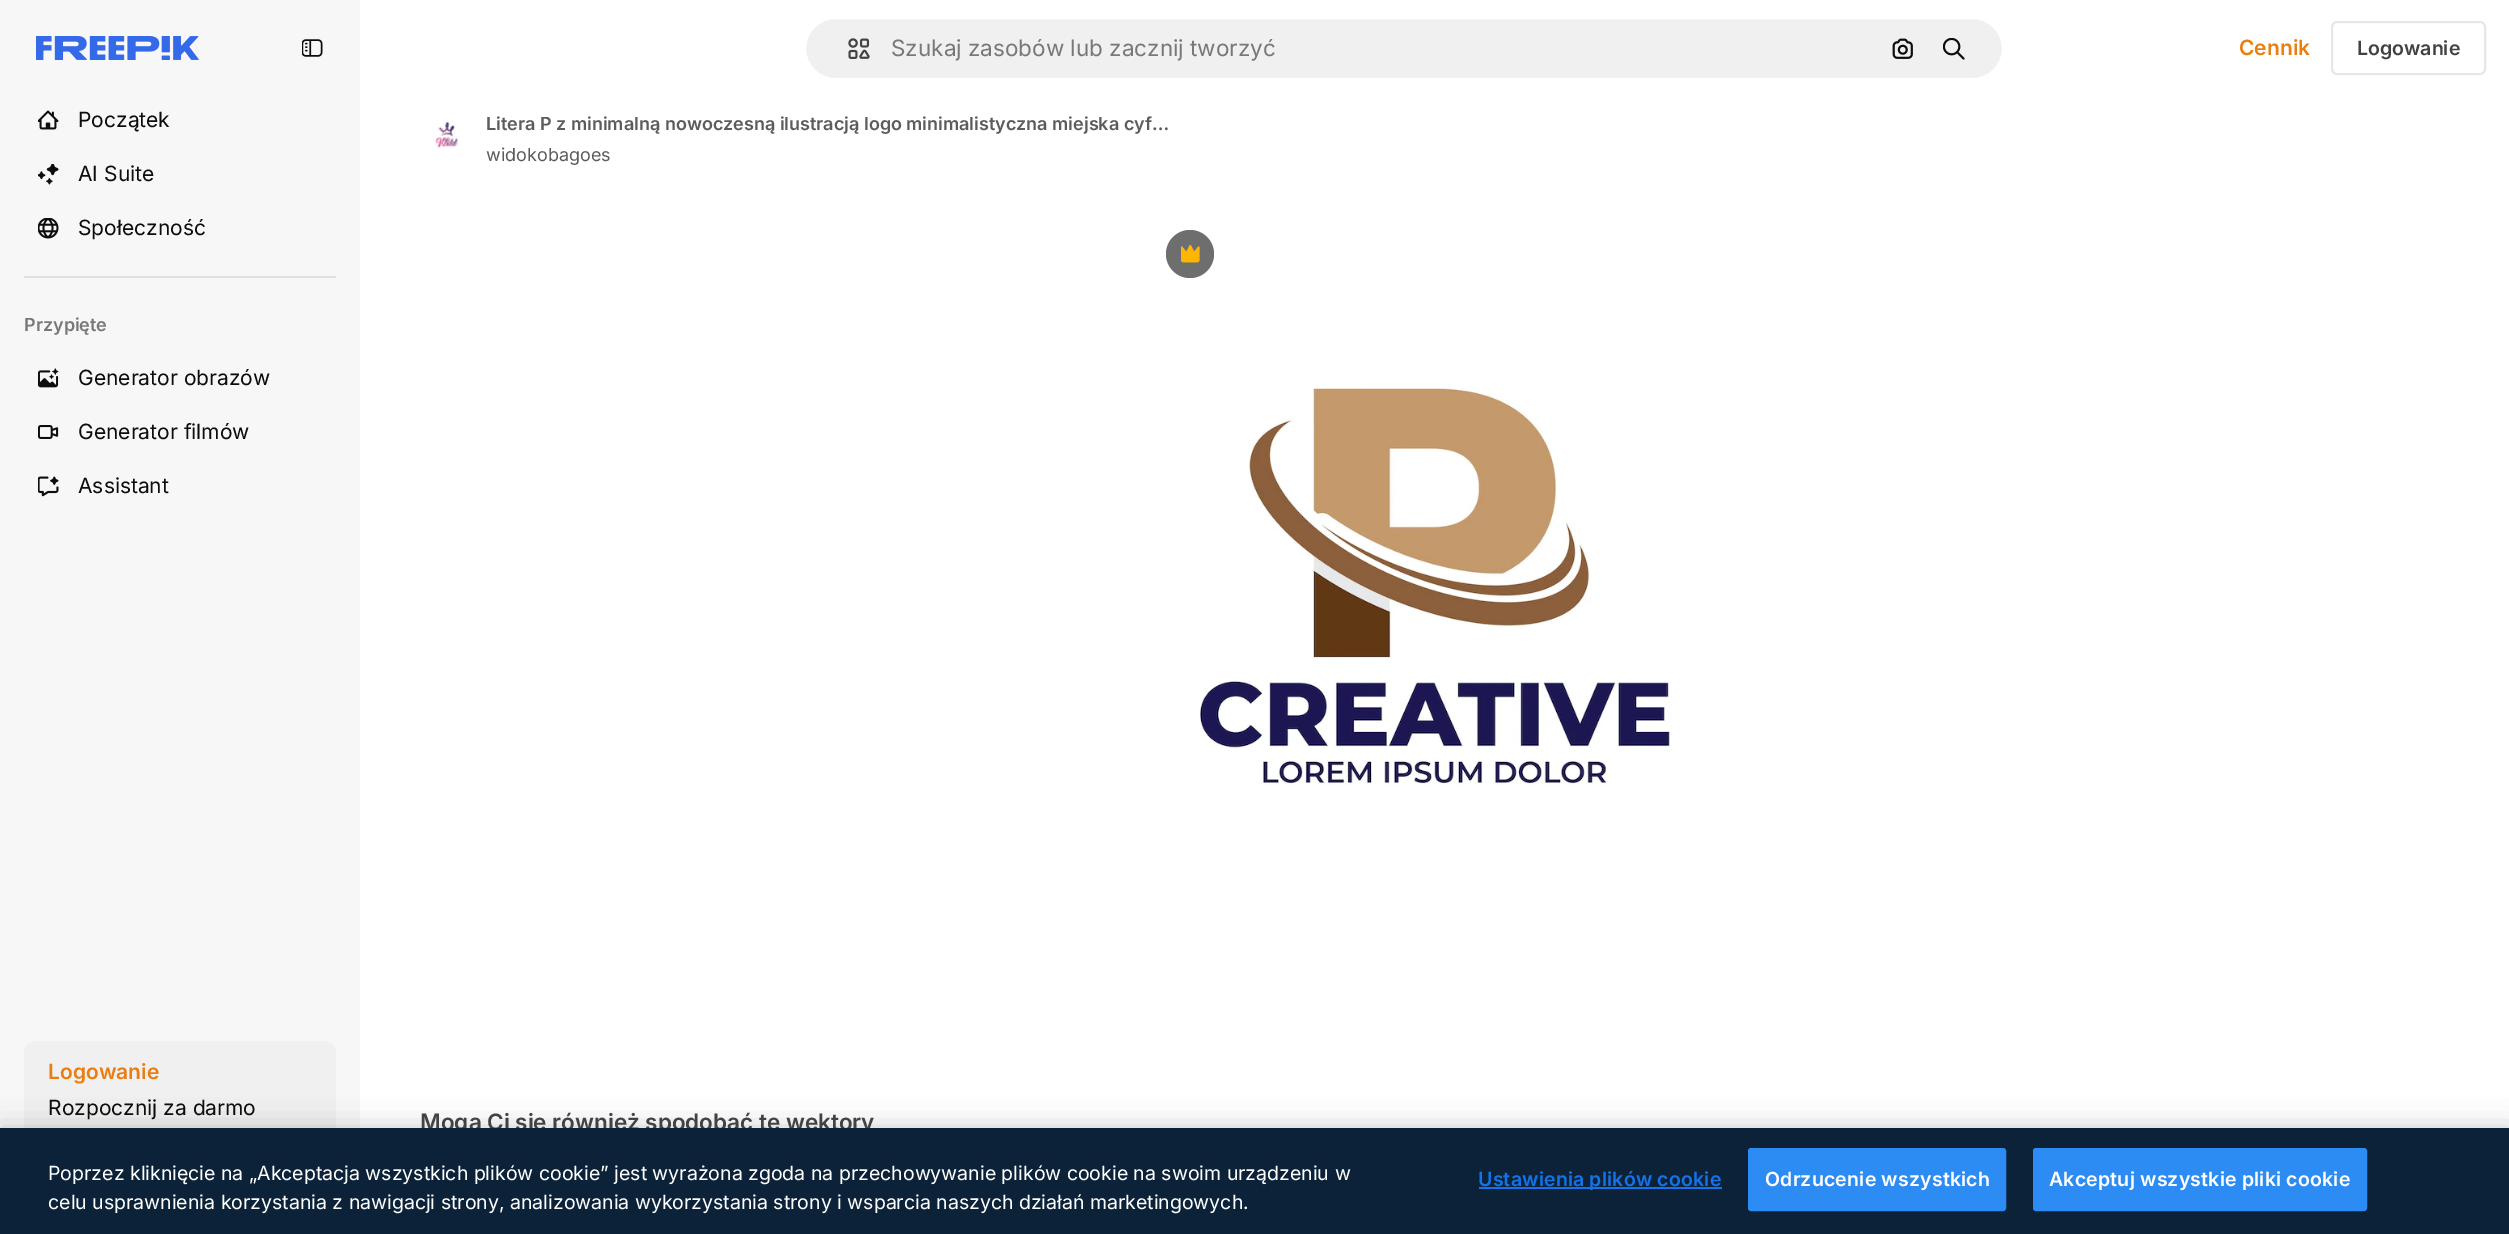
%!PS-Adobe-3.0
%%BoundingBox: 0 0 2509 1234
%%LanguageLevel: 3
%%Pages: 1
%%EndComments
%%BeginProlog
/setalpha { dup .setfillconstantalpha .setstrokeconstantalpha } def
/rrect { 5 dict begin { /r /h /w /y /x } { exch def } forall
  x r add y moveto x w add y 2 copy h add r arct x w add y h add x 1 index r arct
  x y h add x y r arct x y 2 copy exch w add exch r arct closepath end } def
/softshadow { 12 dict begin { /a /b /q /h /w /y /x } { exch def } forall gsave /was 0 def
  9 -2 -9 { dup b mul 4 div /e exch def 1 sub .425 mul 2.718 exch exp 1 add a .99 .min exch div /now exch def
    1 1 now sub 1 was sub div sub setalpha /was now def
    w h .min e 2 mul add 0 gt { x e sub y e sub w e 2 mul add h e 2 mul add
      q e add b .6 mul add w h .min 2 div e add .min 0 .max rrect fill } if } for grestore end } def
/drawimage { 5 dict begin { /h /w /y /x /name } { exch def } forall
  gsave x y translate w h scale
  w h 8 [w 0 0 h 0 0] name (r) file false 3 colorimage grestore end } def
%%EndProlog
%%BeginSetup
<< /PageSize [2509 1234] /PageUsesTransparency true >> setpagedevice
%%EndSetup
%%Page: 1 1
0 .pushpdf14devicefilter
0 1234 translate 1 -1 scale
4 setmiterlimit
1 setgray
0 0 2509 1234 rectfill
0.969 setgray
0 0 360 1128 rectfill
(images/1.raw) 36 36 163 24 drawimage
(images/2.raw) 302 39 21 18 drawimage
(images/3.raw) 38 110 21 20 drawimage
(images/4.raw) 38 164 21 21 drawimage
(images/5.raw) 38 218 21 21 drawimage
0.878 setgray
24 276 312 2 rectfill
(images/6.raw) 38 368 21 20 drawimage
(images/7.raw) 38 425 21 14 drawimage
(images/8.raw) 38 476 21 21 drawimage
0.941 setgray
24 1041 312 98 12 rrect fill
805 18 1198 61 30.5 rrect gsave fill grestore
1 setgray
2 setlinewidth
stroke
(images/9.raw) 848 38 22 21 drawimage
(images/10.raw) 1892 38 21 21 drawimage
(images/11.raw) 1943 38 22 22 drawimage
0.906 setgray
2332 22 153 52 5 rrect stroke
(images/12.raw) 435 121 24 27 drawimage
0.431 setgray
newpath 1190 254 24 0 360 arc closepath fill
(images/13.raw) 1181 245 19 18 drawimage
(images/14.raw) 1199 388 473 398 drawimage
0 setgray
0 1128 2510 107 0 13.5 0.2 softshadow
/Inter-Regular [21 0 0 -21 0 0] selectfont
0.051 setgray
78 127 moveto (Początek) show
78 181 moveto (AI Suite) show
78 235 moveto (Społeczność) show
/Inter-SemiBold [18 0 0 -18 0 0] selectfont
0.471 setgray
24 331 moveto (Przypięte) show
/Inter-Regular [21 0 0 -21 0 0] selectfont
0.051 setgray
78 385 moveto (Generator obrazów) show
78 439 moveto (Generator filmów) show
78 493 moveto (Assistant) show
/Inter-SemiBold [21 0 0 -21 0 0] selectfont
0.918 0.494 0.067 setrgbcolor
48 1079 moveto (Logowanie) show
/Inter-Regular [21 0 0 -21 0 0] selectfont
0.051 setgray
48 1115 moveto (Rozpocznij za darmo) show
/Inter-Regular [22.5 0 0 -22.5 0 0] selectfont
0.471 setgray
891 56 moveto (Szukaj zasobów lub zacznij tworzyć) show
/Inter-SemiBold [21 0 0 -21 0 0] selectfont
0.918 0.494 0.067 setrgbcolor
2239 55 moveto (Cennik) show
/Inter-SemiBold [19.5 0 0 -19.5 0 0] selectfont
0.259 setgray
2357 55 moveto (Logowanie) show
/Inter-SemiBold [18 0 0 -18 0 0] selectfont
0.361 setgray
486 130 moveto (Litera P z minimalną nowoczesną ilustracją logo minimalistyczna miejska cyf…) show
/Inter-Regular [18 0 0 -18 0 0] selectfont
486 161 moveto (widokobagoes) show
/Inter-SemiBold [22.5 0 0 -22.5 0 0] selectfont
0.259 setgray
420 1130 moveto (Mogą Ci się również spodobać te wektory) show
0.043 0.133 0.224 setrgbcolor
0 1128 2509 106 rectfill
/Inter-Regular [19.5 0 0 -19.5 0 0] selectfont
1 setgray
48 1180 moveto (Poprzez kliknięcie na „Akceptacja wszystkich plików cookie” jest wyrażona zgoda na przechowywanie plików cookie na swoim urządzeniu w) show
48 1209 moveto (celu usprawnienia korzystania z nawigacji strony, analizowania wykorzystania strony i wsparcia naszych działań marketingowych.) show
0.071 0.451 0.922 setrgbcolor
1479 1187 243 2 rectfill
/Inter-SemiBold [19.5 0 0 -19.5 0 0] selectfont
1478 1186 moveto 0.2 0 (Ustawienia plików cookie) ashow
0.173 0.549 0.957 setrgbcolor
1749 1149 256 61 2 rrect gsave fill grestore
stroke
1 setgray
1765 1186 moveto 0.2 0 (Odrzucenie wszystkich) ashow
0.173 0.549 0.957 setrgbcolor
2034 1149 332 61 2 rrect gsave fill grestore
stroke
1 setgray
2049 1186 moveto 0.2 0 (Akceptuj wszystkie pliki cookie) ashow
.poppdf14devicefilter showpage
%%EOF
